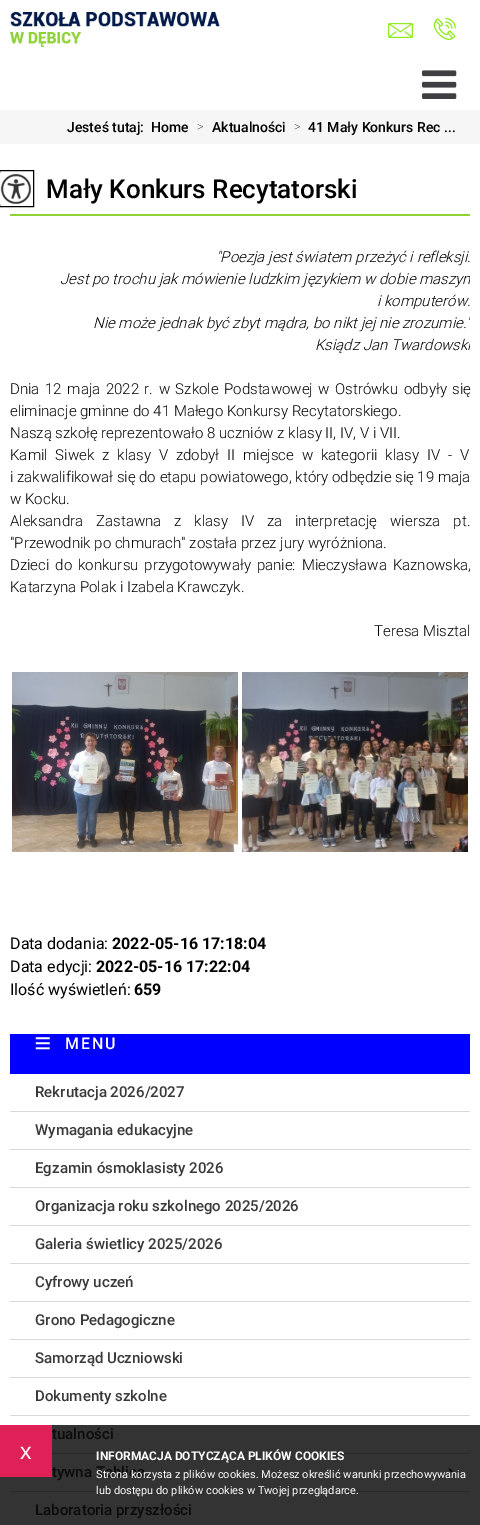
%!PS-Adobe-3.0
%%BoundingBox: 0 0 480 1525
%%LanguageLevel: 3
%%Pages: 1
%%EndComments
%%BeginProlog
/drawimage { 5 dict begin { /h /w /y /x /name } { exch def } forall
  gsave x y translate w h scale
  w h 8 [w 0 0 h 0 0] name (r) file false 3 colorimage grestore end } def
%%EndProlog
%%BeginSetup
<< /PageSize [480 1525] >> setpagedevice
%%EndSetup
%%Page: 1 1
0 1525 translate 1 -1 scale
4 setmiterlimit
1 setgray
0 0 480 1525 rectfill
0.2 setgray
0 1425 480 100 rectfill
(images/1.raw) 10 12 210 35 drawimage
(images/2.raw) 388 23 25 15 drawimage
(images/3.raw) 433 18 23 22 drawimage
(images/4.raw) 422 70 35 29 drawimage
0.965 setgray
0 110 480 34 rectfill
0 setgray
-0.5 170.5 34 36 rectstroke
(images/5.raw) 0 173 31 31 drawimage
0.557 0.824 0.208 setrgbcolor
10 214 460 2 rectfill
(images/6.raw) 12 672 226 180 drawimage
(images/7.raw) 242 672 226 180 drawimage
0 0 0.996 setrgbcolor
10 1034 460 40 rectfill
(images/8.raw) 35 1037 15 13 drawimage
0.847 0.851 0.855 setrgbcolor
10 1111 460 1 rectfill
10 1149 460 1 rectfill
10 1187 460 1 rectfill
10 1225 460 1 rectfill
10 1263 460 1 rectfill
10 1301 460 1 rectfill
10 1339 460 1 rectfill
10 1377 460 1 rectfill
10 1415 460 1 rectfill
0.169 0.169 0.173 setrgbcolor
52 1453 418 1 rectfill
(images/9.raw) 448 1468 7 10 drawimage
10 1491 460 1 rectfill
0.875 0.129 0.341 setrgbcolor
0 1425 52 52 rectfill
/Roboto-Medium [14 0 0 -14 0 0] selectfont
0 setgray
67 132 moveto (Jesteś tutaj:) show
151 132 moveto (Home) show
/Roboto-Thin [13 0 0 -13 0 0] selectfont
197 131 moveto (>) show
/Roboto-Medium [14 0 0 -14 0 0] selectfont
212 132 moveto (Aktualności) show
/Roboto-Thin [13 0 0 -13 0 0] selectfont
294 131 moveto (>) show
/Roboto-Medium [14 0 0 -14 0 0] selectfont
308 132 moveto (41 Mały Konkurs Rec ...) show
/Roboto-Medium [26 0 0 -26 0 0] selectfont
46 198 moveto (Mały Konkurs Recytatorski) show
/Roboto-LightItalic [15 0 0 -15 0 0] selectfont
216 262 moveto ("Poezja jest światem przeżyć i refleksji.) show
gsave
10 144 460 890 rectclip
60 284 moveto (Jest po trochu jak mówienie ludzkim językiem w dobie maszyn) show
grestore
377 306 moveto (i komputerów.) show
gsave
10 144 460 890 rectclip
93 328 moveto (Nie może jednak być zbyt mądra, bo nikt jej nie zrozumie.") show
315 350 moveto (Ksiądz Jan Twardowski) show
grestore
/Roboto-Light [15 0 0 -15 0 0] selectfont
10 394 moveto 1.9 0 32 (Dnia 12 maja 2022 r. w Szkole Podstawowej w Ostrówku odbyły się) widthshow
10 416 moveto (eliminacje gminne do 41 Małego Konkursy Recytatorskiego.) show
10 438 moveto (Naszą szkołę reprezentowało 8 uczniów z klasy II, IV, V i VII.) show
10 460 moveto 4.25 0 32 (Kamil Siwek z klasy V zdobył II miejsce w kategorii klasy IV - V) widthshow
10 482 moveto (i zakwalifikował się do etapu powiatowego, który odbędzie się 19 maja) show
10 504 moveto (w Kocku.) show
10 526 moveto 9.25 0 32 (Aleksandra Zastawna z klasy IV za interpretację wiersza pt.) widthshow
10 548 moveto ("Przewodnik po chmurach" została przez jury wyróżniona.) show
10 570 moveto 2.25 0 32 (Dzieci do konkursu przygotowywały panie: Mieczysława Kaznowska,) widthshow
10 592 moveto (Katarzyna Polak i Izabela Krawczyk.) show
374 636 moveto (Teresa Misztal) show
/Roboto-Regular [16 0 0 -16 0 0] selectfont
10 949 moveto (Data dodania:) show
/Roboto-Bold [16 0 0 -16 0 0] selectfont
112 949 moveto (2022-05-16 17:18:04) show
/Roboto-Regular [16 0 0 -16 0 0] selectfont
10 972 moveto (Data edycji:) show
/Roboto-Bold [16 0 0 -16 0 0] selectfont
96 972 moveto (2022-05-16 17:22:04) show
/Roboto-Regular [16 0 0 -16 0 0] selectfont
10 995 moveto (Ilość wyświetleń:) show
/Roboto-Bold [16 0 0 -16 0 0] selectfont
134 995 moveto (659) show
/Roboto-Medium [16 0 0 -16 0 0] selectfont
1 setgray
65 1049 moveto 2 0 (MENU) ashow
/Roboto-Medium [15 0 0 -15 0 0] selectfont
0.224 setgray
35 1097 moveto (Rekrutacja 2026/2027) show
35 1135 moveto (Wymagania edukacyjne) show
35 1173 moveto (Egzamin ósmoklasisty 2026) show
35 1211 moveto (Organizacja roku szkolnego 2025/2026) show
35 1249 moveto (Galeria świetlicy 2025/2026) show
35 1287 moveto (Cyfrowy uczeń) show
35 1325 moveto (Grono Pedagogiczne) show
35 1363 moveto (Samorząd Uczniowski) show
35 1401 moveto (Dokumenty szkolne) show
0.043 setgray
52 1439 moveto (tualności) show
52 1477 moveto (tywna Tablica) show
35 1515 moveto (Laboratoria przyszłości) show
/LiberationSans-Regular [23 0 0 -23 0 0] selectfont
1 setgray
20 1459 moveto (x) show
/Roboto-Bold [12 0 0 -12 0 0] selectfont
96 1460 moveto (INFORMACJA DOTYCZĄCA PLIKÓW COOKIES) show
/Roboto-Regular [11 0 0 -11 0 0] selectfont
96 1478 moveto (Strona korzysta z plików cookies. Możesz określić warunki przechowywania) show
96 1494 moveto (lub dostępu do plików cookies w Twojej przeglądarce.) show
showpage
%%EOF
